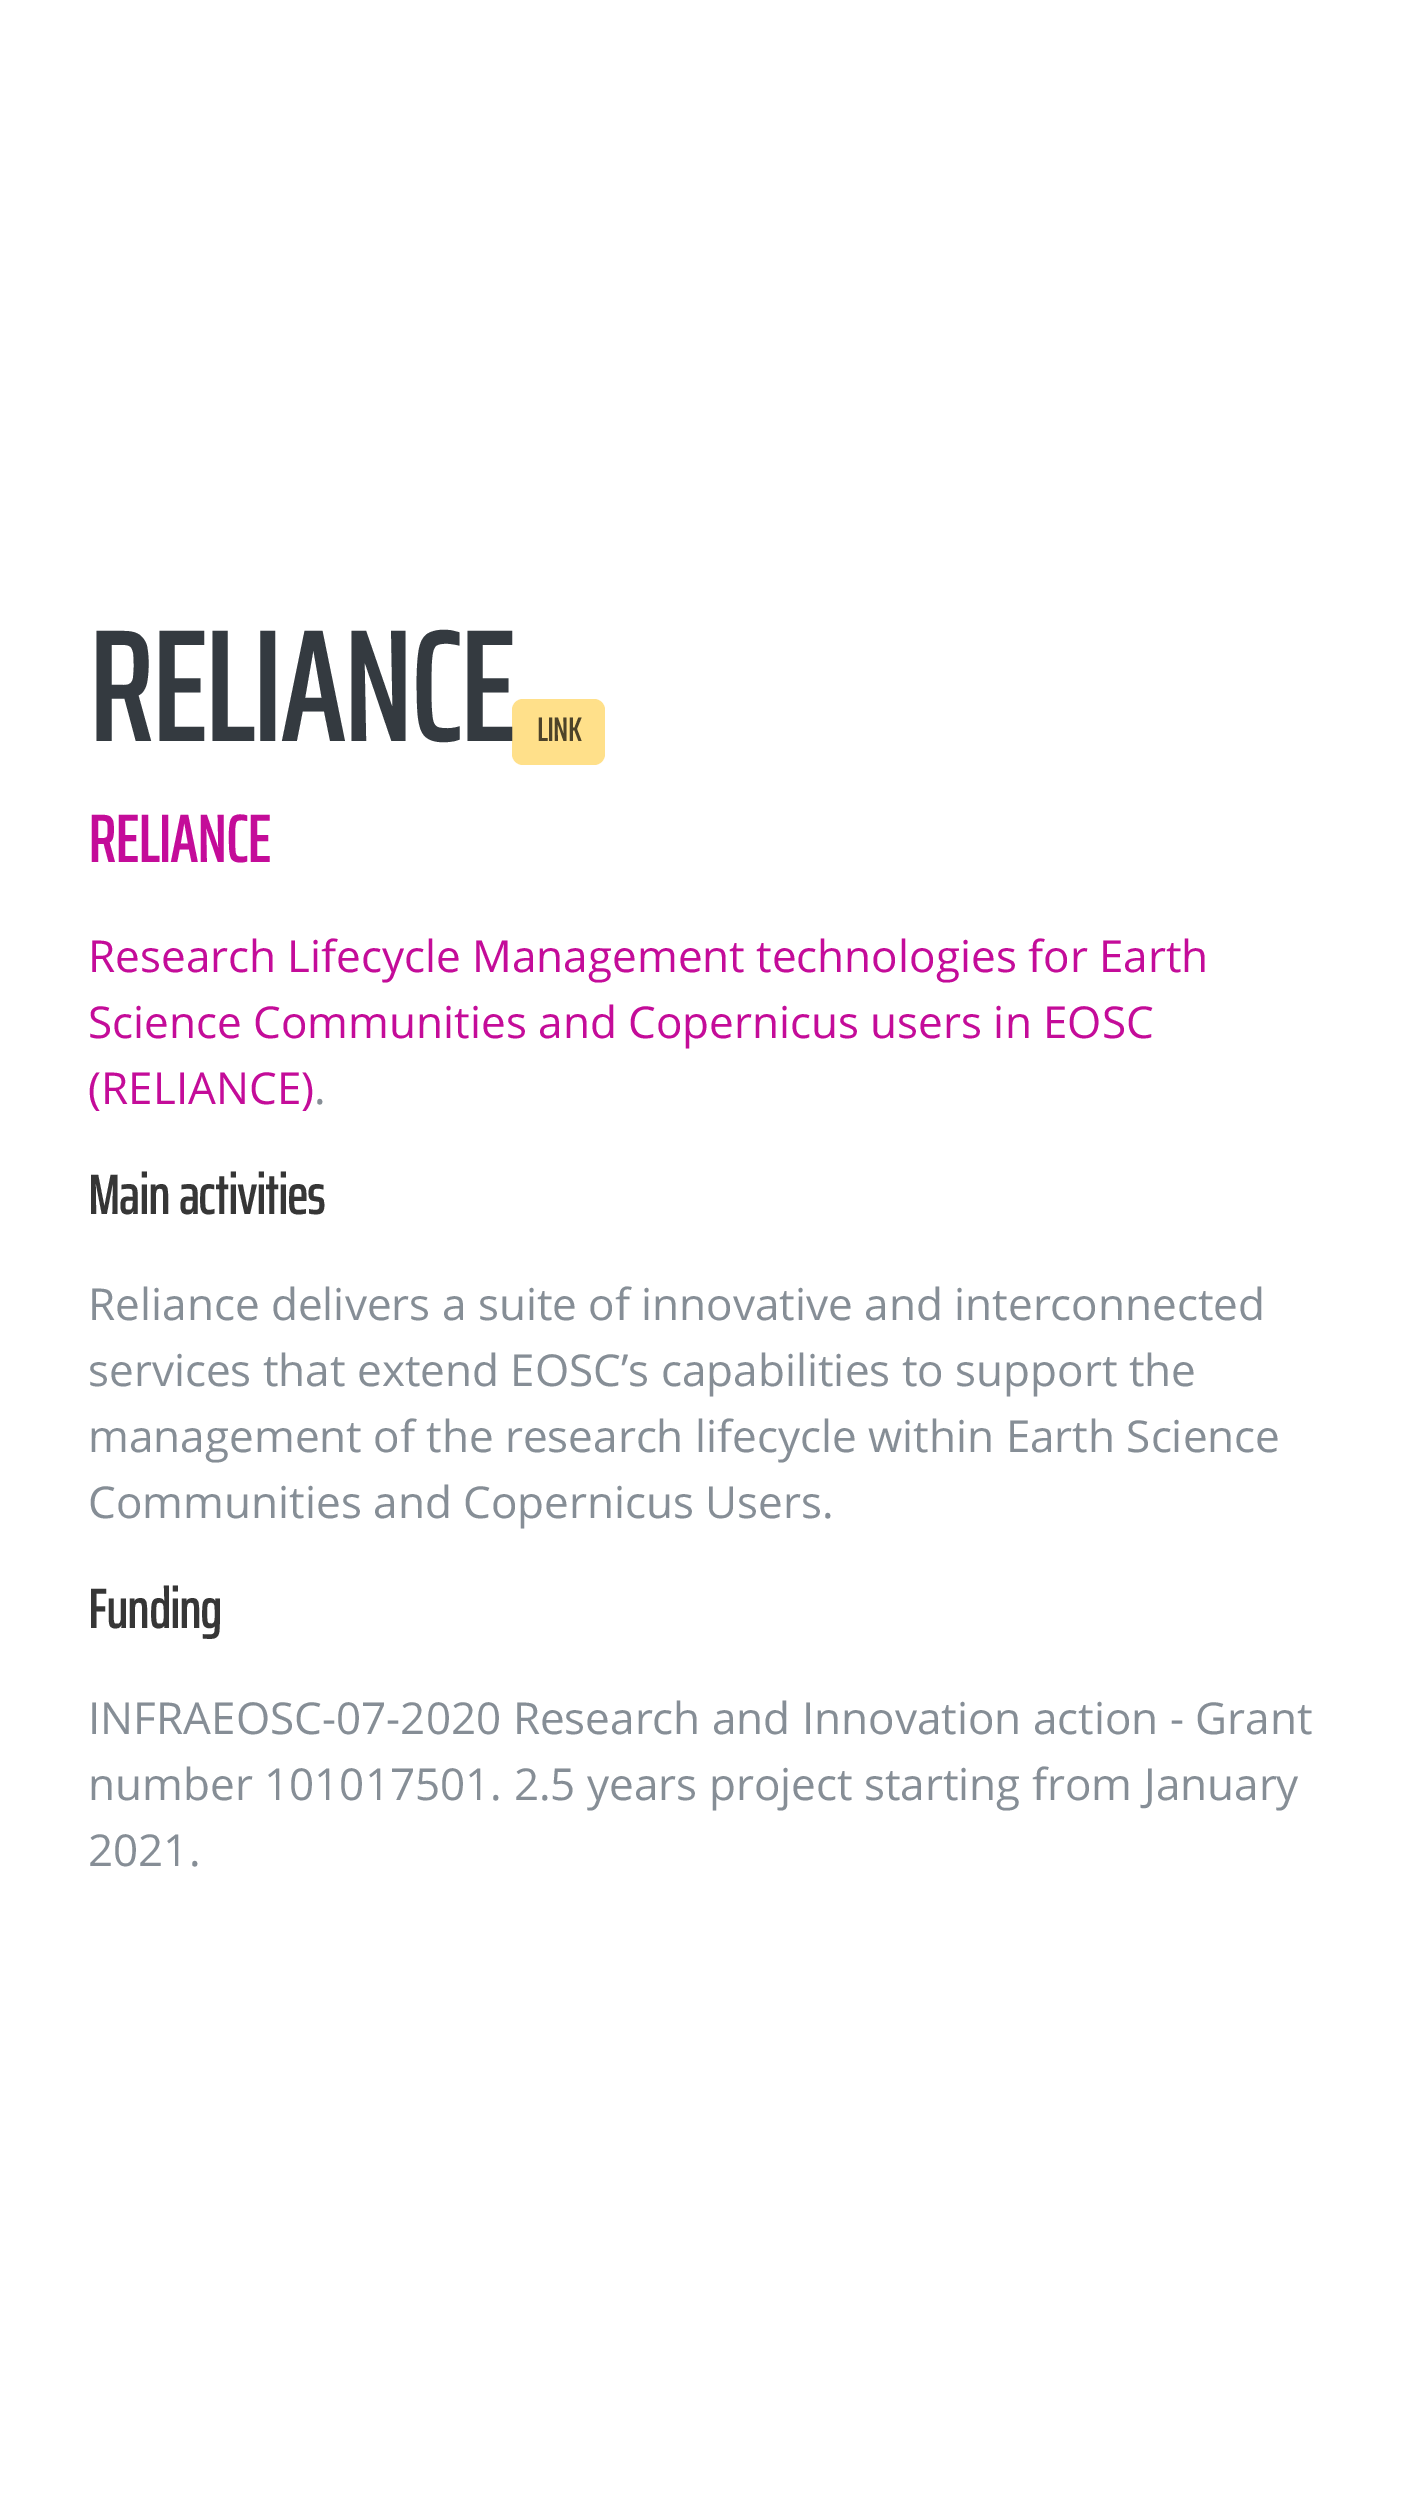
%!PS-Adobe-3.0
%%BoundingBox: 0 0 1403 2520
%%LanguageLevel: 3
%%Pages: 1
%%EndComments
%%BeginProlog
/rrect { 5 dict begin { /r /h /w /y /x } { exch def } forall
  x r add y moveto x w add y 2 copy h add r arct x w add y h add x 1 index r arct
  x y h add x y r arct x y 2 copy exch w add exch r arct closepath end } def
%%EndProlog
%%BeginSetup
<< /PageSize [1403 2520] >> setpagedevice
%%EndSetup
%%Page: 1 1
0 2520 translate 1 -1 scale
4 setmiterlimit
1 setgray
0 0 1403 2520 rectfill
1 0.878 0.541 setrgbcolor
512 699 93 66 11 rrect fill
/SairaExtraCondensed-Bold [154 0 0 -154 0 0] selectfont
0.204 0.227 0.251 setrgbcolor
88 741 moveto (RELIANCE) show
/SairaExtraCondensed-Bold [33 0 0 -33 0 0] selectfont
0.302 0.263 0.161 setrgbcolor
537 741 moveto (LINK) show
/SairaExtraCondensed-Bold [66 0 0 -66 0 0] selectfont
0.769 0.047 0.6 setrgbcolor
88 862 moveto (RELIANCE) show
/OpenSans-Regular [44 0 0 -44 0 0] selectfont
88 972 moveto (Research Lifecycle Management technologies for Earth) show
88 1038 moveto (Science Communities and Copernicus users in EOSC) show
88 1104 moveto (\(RELIANCE\)) show
0.525 0.557 0.588 setrgbcolor
314 1104 moveto (.) show
/SairaExtraCondensed-Bold [55 0 0 -55 0 0] selectfont
0.212 setgray
88 1214 moveto (Main activities) show
/OpenSans-Regular [44 0 0 -44 0 0] selectfont
0.525 0.557 0.588 setrgbcolor
88 1320 moveto (Reliance delivers a suite of innovative and interconnected) show
88 1386 moveto (services that extend EOSC’s capabilities to support the) show
88 1452 moveto (management of the research lifecycle within Earth Science) show
88 1518 moveto (Communities and Copernicus Users.) show
/SairaExtraCondensed-Bold [55 0 0 -55 0 0] selectfont
0.212 setgray
88 1628 moveto (Funding) show
/OpenSans-Regular [44 0 0 -44 0 0] selectfont
0.525 0.557 0.588 setrgbcolor
88 1734 moveto (INFRAEOSC-07-2020 Research and Innovation action - Grant) show
88 1800 moveto (number 101017501. 2.5 years project starting from January) show
88 1866 moveto (2021.) show
showpage
%%EOF
